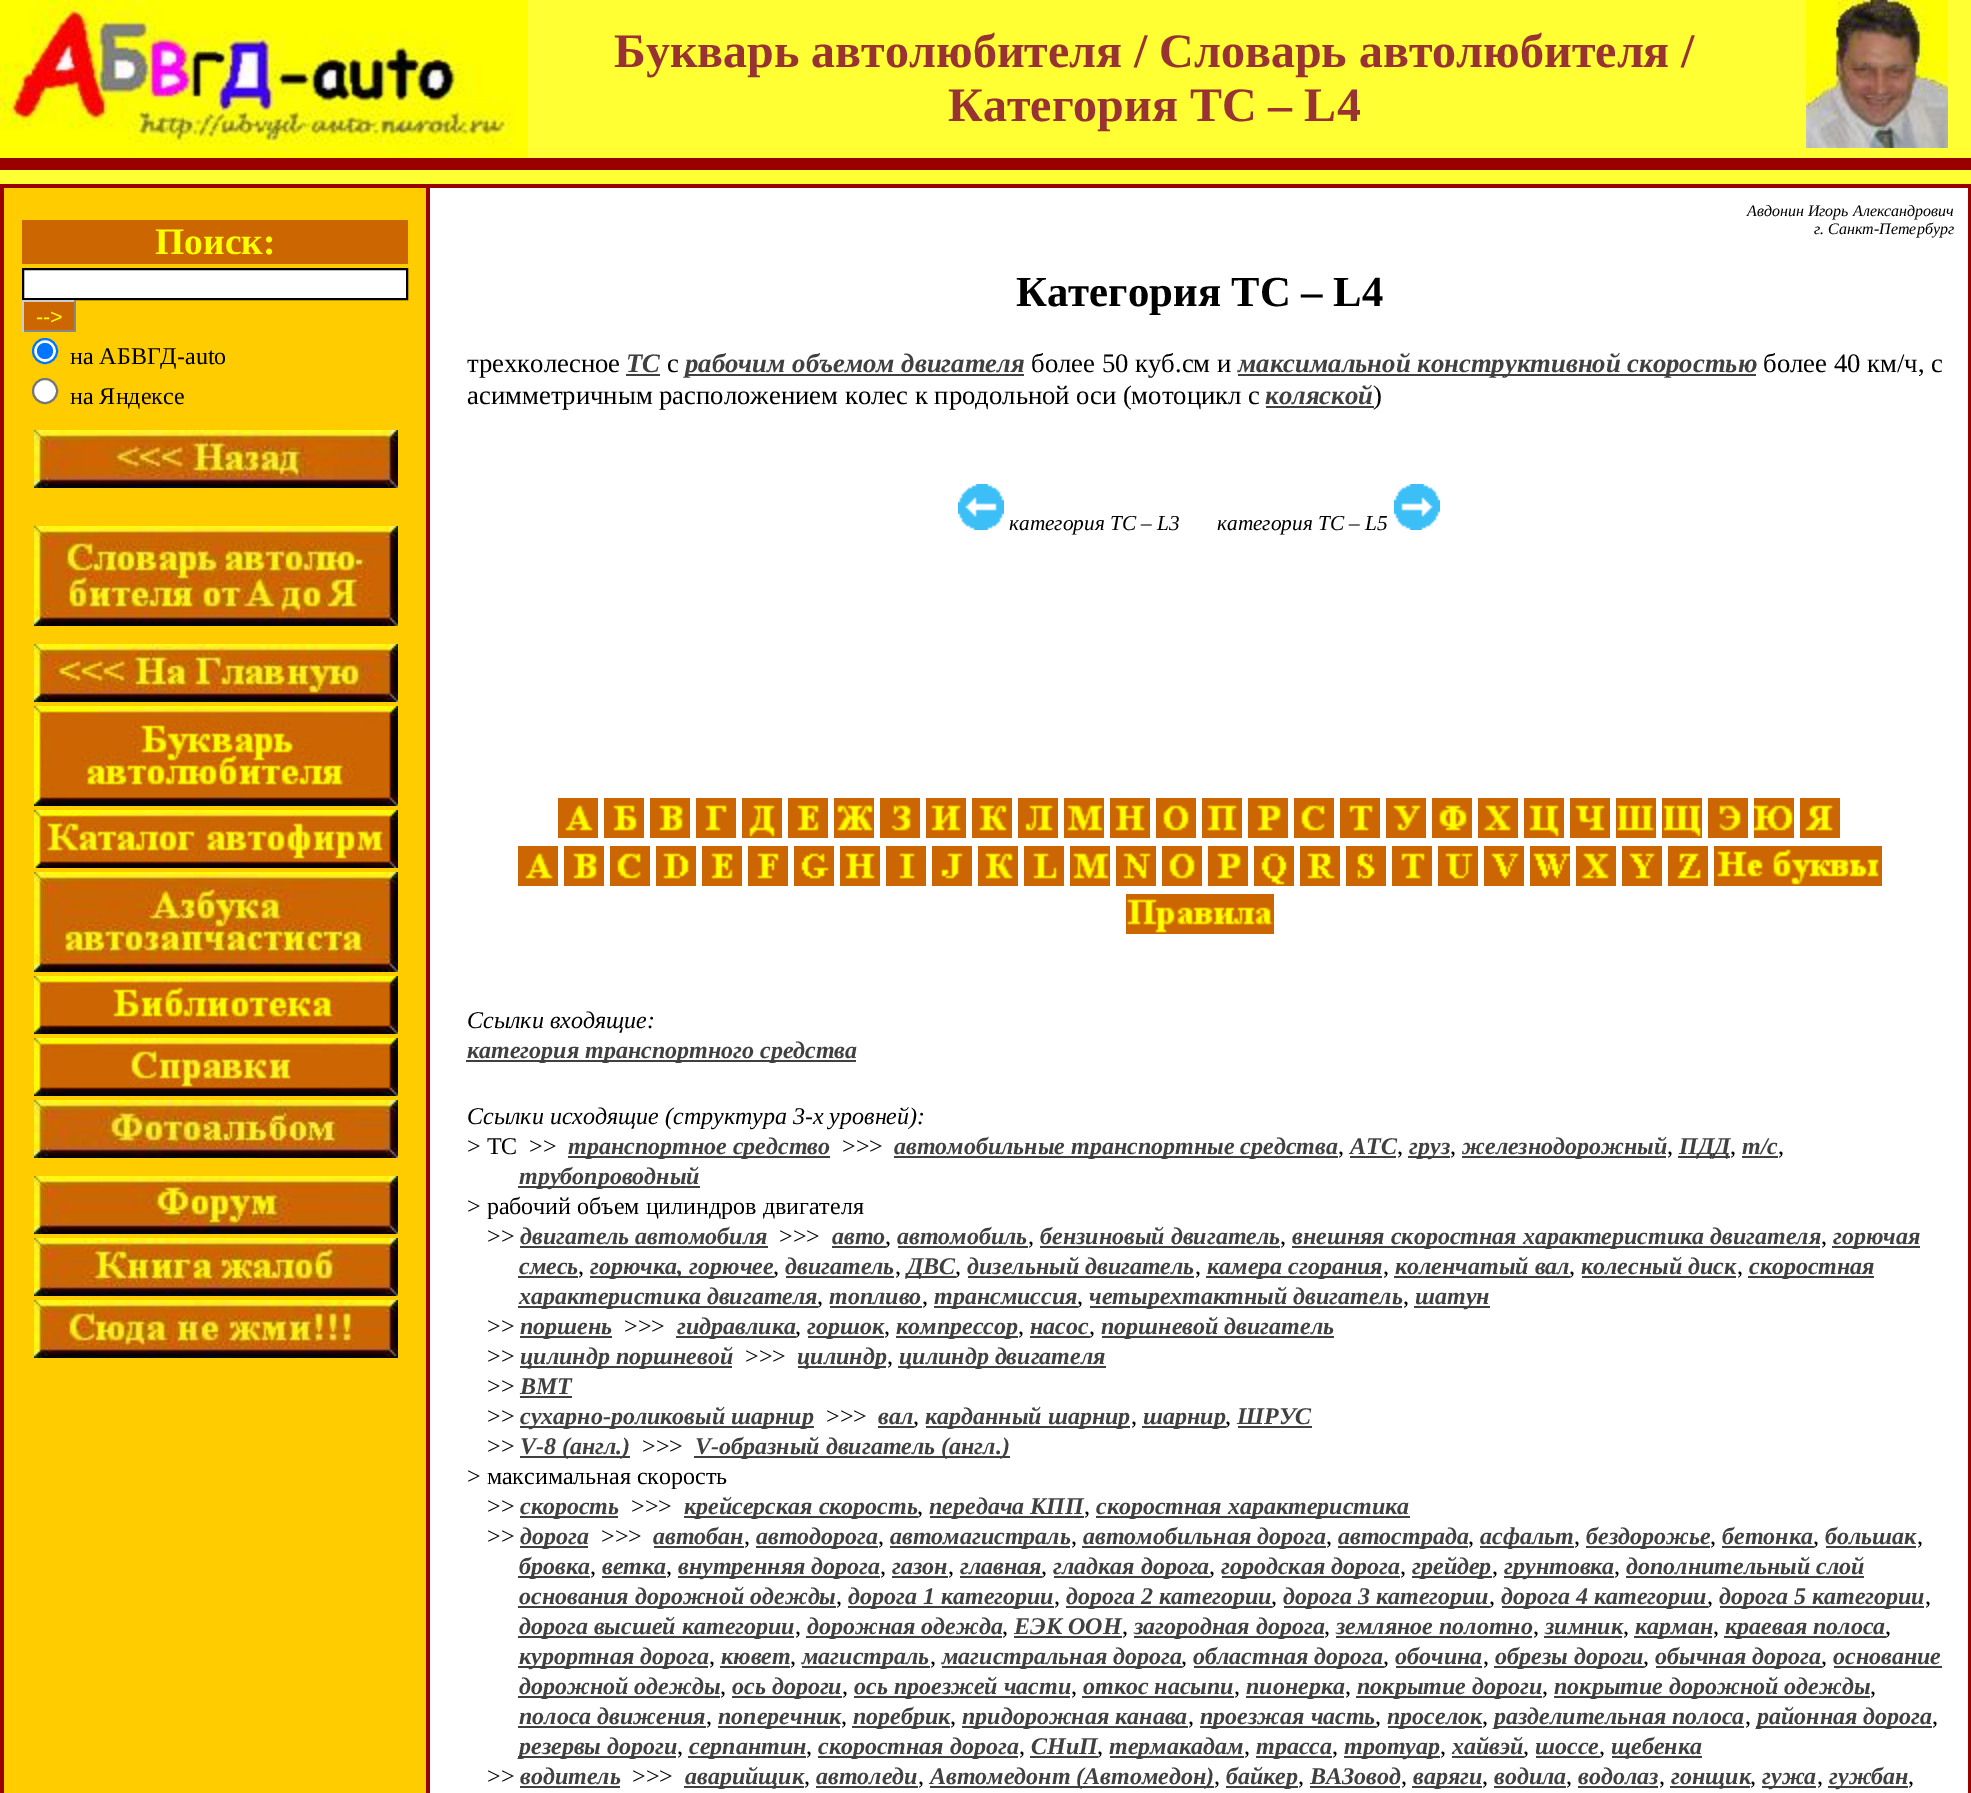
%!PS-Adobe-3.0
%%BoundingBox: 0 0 1971 1793
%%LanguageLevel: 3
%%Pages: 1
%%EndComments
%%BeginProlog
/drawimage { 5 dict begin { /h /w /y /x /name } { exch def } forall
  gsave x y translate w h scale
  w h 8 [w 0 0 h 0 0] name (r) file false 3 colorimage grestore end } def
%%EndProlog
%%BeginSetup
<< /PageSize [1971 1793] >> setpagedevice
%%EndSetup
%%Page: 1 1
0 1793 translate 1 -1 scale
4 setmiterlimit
1 1 0.2 setrgbcolor
0 0 1971 1793 rectfill
(images/1.raw) 0 0 528 158 drawimage
(images/2.raw) 1806 0 142 148 drawimage
0.6 0 0 setrgbcolor
0 158 1971 12 rectfill
0 184 1971 1609 rectfill
1 0.8 0 setrgbcolor
4 188 422 1605 rectfill
0.8 0.4 0 setrgbcolor
22 220 386 44 rectfill
1 setgray
newpath 23 269 moveto 407 269 lineto 407 299 lineto 23 299 lineto closepath gsave fill grestore
0 setgray
2 setlinewidth
stroke
0.8 0.4 0 setrgbcolor
24 302 50 28 rectfill
0.8 setgray
22 300 54 2 rectfill
0.533 setgray
74 300 2 32 rectfill
22 330 54 2 rectfill
0.8 setgray
22 300 2 32 rectfill
1 setgray
newpath 45 351 12 0 360 arc closepath gsave fill grestore
0 0.459 1 setrgbcolor
stroke
newpath 45 351 8 0 360 arc closepath fill
1 setgray
newpath 45 391 12 0 360 arc closepath gsave fill grestore
0.463 setgray
stroke
(images/3.raw) 34 430 364 58 drawimage
(images/4.raw) 34 526 364 100 drawimage
(images/5.raw) 34 644 364 58 drawimage
(images/6.raw) 34 706 364 100 drawimage
(images/7.raw) 34 810 364 58 drawimage
(images/8.raw) 34 872 364 100 drawimage
(images/9.raw) 34 976 364 58 drawimage
(images/10.raw) 34 1038 364 58 drawimage
(images/11.raw) 34 1100 364 58 drawimage
(images/12.raw) 34 1176 364 58 drawimage
(images/13.raw) 34 1238 364 58 drawimage
(images/14.raw) 34 1300 364 58 drawimage
1 setgray
430 188 1538 1605 rectfill
0.251 setgray
626 374 34 2 rectfill
686 374 338 2 rectfill
1238 374 518 2 rectfill
1266 406 108 2 rectfill
(images/15.raw) 958 484 46 46 drawimage
(images/16.raw) 1394 484 46 46 drawimage
(images/17.raw) 558 798 40 40 drawimage
(images/18.raw) 604 798 40 40 drawimage
(images/19.raw) 650 798 40 40 drawimage
(images/20.raw) 696 798 40 40 drawimage
(images/21.raw) 742 798 40 40 drawimage
(images/22.raw) 788 798 40 40 drawimage
(images/23.raw) 834 798 40 40 drawimage
(images/24.raw) 880 798 40 40 drawimage
(images/25.raw) 926 798 40 40 drawimage
(images/26.raw) 972 798 40 40 drawimage
(images/27.raw) 1018 798 40 40 drawimage
(images/28.raw) 1064 798 40 40 drawimage
(images/29.raw) 1110 798 40 40 drawimage
(images/30.raw) 1156 798 40 40 drawimage
(images/31.raw) 1202 798 40 40 drawimage
(images/32.raw) 1248 798 40 40 drawimage
(images/33.raw) 1294 798 40 40 drawimage
(images/34.raw) 1340 798 40 40 drawimage
(images/35.raw) 1386 798 40 40 drawimage
(images/36.raw) 1432 798 40 40 drawimage
(images/37.raw) 1478 798 40 40 drawimage
(images/38.raw) 1524 798 40 40 drawimage
(images/39.raw) 1570 798 40 40 drawimage
(images/40.raw) 1616 798 40 40 drawimage
(images/41.raw) 1662 798 40 40 drawimage
(images/42.raw) 1708 798 40 40 drawimage
(images/43.raw) 1754 798 40 40 drawimage
(images/44.raw) 1800 798 40 40 drawimage
(images/17.raw) 518 846 40 40 drawimage
(images/19.raw) 564 846 40 40 drawimage
(images/33.raw) 610 846 40 40 drawimage
(images/45.raw) 656 846 40 40 drawimage
(images/22.raw) 702 846 40 40 drawimage
(images/46.raw) 748 846 40 40 drawimage
(images/47.raw) 794 846 40 40 drawimage
(images/29.raw) 840 846 40 40 drawimage
(images/48.raw) 886 846 40 40 drawimage
(images/49.raw) 932 846 40 40 drawimage
(images/26.raw) 978 846 40 40 drawimage
(images/50.raw) 1024 846 40 40 drawimage
(images/28.raw) 1070 846 40 40 drawimage
(images/51.raw) 1116 846 40 40 drawimage
(images/30.raw) 1162 846 40 40 drawimage
(images/32.raw) 1208 846 40 40 drawimage
(images/52.raw) 1254 846 40 40 drawimage
(images/53.raw) 1300 846 40 40 drawimage
(images/54.raw) 1346 846 40 40 drawimage
(images/34.raw) 1392 846 40 40 drawimage
(images/55.raw) 1438 846 40 40 drawimage
(images/56.raw) 1484 846 40 40 drawimage
(images/57.raw) 1530 846 40 40 drawimage
(images/37.raw) 1576 846 40 40 drawimage
(images/58.raw) 1622 846 40 40 drawimage
(images/59.raw) 1668 846 40 40 drawimage
(images/60.raw) 1714 846 168 40 drawimage
(images/61.raw) 1126 894 148 40 drawimage
466 1060 390 2 rectfill
568 1156 262 2 rectfill
894 1156 444 2 rectfill
1350 1156 46 2 rectfill
1408 1156 42 2 rectfill
1462 1156 204 2 rectfill
1678 1156 52 2 rectfill
1742 1156 36 2 rectfill
518 1186 182 2 rectfill
520 1246 248 2 rectfill
832 1246 54 2 rectfill
898 1246 130 2 rectfill
1040 1246 240 2 rectfill
1292 1246 528 2 rectfill
1832 1246 88 2 rectfill
518 1276 60 2 rectfill
590 1276 184 2 rectfill
786 1276 108 2 rectfill
906 1276 50 2 rectfill
968 1276 226 2 rectfill
1206 1276 176 2 rectfill
1394 1276 176 2 rectfill
1582 1276 154 2 rectfill
1748 1276 126 2 rectfill
518 1306 300 2 rectfill
830 1306 92 2 rectfill
934 1306 144 2 rectfill
1090 1306 312 2 rectfill
1414 1306 76 2 rectfill
520 1336 92 2 rectfill
676 1336 120 2 rectfill
808 1336 76 2 rectfill
896 1336 122 2 rectfill
1030 1336 60 2 rectfill
1102 1336 232 2 rectfill
520 1366 212 2 rectfill
798 1366 88 2 rectfill
898 1366 208 2 rectfill
520 1396 52 2 rectfill
520 1426 294 2 rectfill
878 1426 36 2 rectfill
926 1426 204 2 rectfill
1142 1426 84 2 rectfill
1238 1426 74 2 rectfill
520 1456 110 2 rectfill
694 1456 316 2 rectfill
520 1516 98 2 rectfill
684 1516 234 2 rectfill
930 1516 154 2 rectfill
1096 1516 314 2 rectfill
520 1546 68 2 rectfill
654 1546 90 2 rectfill
756 1546 122 2 rectfill
890 1546 180 2 rectfill
1082 1546 244 2 rectfill
1338 1546 130 2 rectfill
1480 1546 94 2 rectfill
1586 1546 124 2 rectfill
1722 1546 92 2 rectfill
1826 1546 90 2 rectfill
518 1576 72 2 rectfill
602 1576 64 2 rectfill
678 1576 202 2 rectfill
892 1576 56 2 rectfill
960 1576 82 2 rectfill
1054 1576 156 2 rectfill
1222 1576 178 2 rectfill
1412 1576 80 2 rectfill
1504 1576 110 2 rectfill
1626 1576 238 2 rectfill
518 1606 318 2 rectfill
848 1606 206 2 rectfill
1066 1606 206 2 rectfill
1284 1606 206 2 rectfill
1502 1606 206 2 rectfill
1720 1606 204 2 rectfill
518 1636 276 2 rectfill
806 1636 196 2 rectfill
1014 1636 108 2 rectfill
1134 1636 190 2 rectfill
1336 1636 196 2 rectfill
1544 1636 78 2 rectfill
1634 1636 78 2 rectfill
1724 1636 162 2 rectfill
518 1666 190 2 rectfill
720 1666 70 2 rectfill
802 1666 128 2 rectfill
942 1666 240 2 rectfill
1194 1666 190 2 rectfill
1396 1666 86 2 rectfill
1494 1666 150 2 rectfill
1656 1666 166 2 rectfill
1834 1666 108 2 rectfill
518 1696 202 2 rectfill
732 1696 110 2 rectfill
854 1696 216 2 rectfill
1082 1696 152 2 rectfill
1246 1696 98 2 rectfill
1356 1696 186 2 rectfill
1554 1696 316 2 rectfill
518 1726 188 2 rectfill
718 1726 122 2 rectfill
852 1726 98 2 rectfill
962 1726 226 2 rectfill
1200 1726 176 2 rectfill
1388 1726 94 2 rectfill
1494 1726 250 2 rectfill
1756 1726 176 2 rectfill
518 1756 158 2 rectfill
688 1756 118 2 rectfill
818 1756 200 2 rectfill
1030 1756 68 2 rectfill
1110 1756 134 2 rectfill
1256 1756 76 2 rectfill
1344 1756 96 2 rectfill
1452 1756 72 2 rectfill
1536 1756 64 2 rectfill
1612 1756 90 2 rectfill
520 1786 100 2 rectfill
684 1786 120 2 rectfill
816 1786 102 2 rectfill
930 1786 284 2 rectfill
1226 1786 72 2 rectfill
1310 1786 90 2 rectfill
1412 1786 70 2 rectfill
1494 1786 72 2 rectfill
1578 1786 80 2 rectfill
1670 1786 80 2 rectfill
1762 1786 54 2 rectfill
1828 1786 80 2 rectfill
/LiberationSerif-Bold [48 0 0 -48 0 0] selectfont
0.6 0.2 0.2 setrgbcolor
614 67 moveto (Букварь автолюбителя / Словарь автолюбителя /) show
948 121 moveto (Категория ТС – L4) show
/LiberationSerif-Bold [37.5 0 0 -37.5 0 0] selectfont
1 1 0 setrgbcolor
155 254 moveto (Поиск:) show
/LiberationSans-Regular [21.3 0 0 -21.3 0 0] selectfont
36 324 moveto (-->) show
/LiberationSerif-Regular [24 0 0 -24 0 0] selectfont
0 setgray
70 364 moveto (на АБВГД-auto) show
70 404 moveto (на Яндексе) show
/LiberationSerif-Italic [16 0 0 -16 0 0] selectfont
1747 216 moveto (Авдонин Игорь Александрович) show
1814 234 moveto (г. Санкт-Петербург) show
/LiberationSerif-Bold [42.75 0 0 -42.75 0 0] selectfont
1016 306 moveto (Категория ТС – L4) show
/LiberationSerif-Regular [26.7 0 0 -26.7 0 0] selectfont
467 372 moveto (трехколесное) show
/LiberationSerif-BoldItalic [26.7 0 0 -26.7 0 0] selectfont
0.251 setgray
626 372 moveto (ТС) show
/LiberationSerif-Regular [26.7 0 0 -26.7 0 0] selectfont
0 setgray
667 372 moveto (с) show
/LiberationSerif-BoldItalic [26.7 0 0 -26.7 0 0] selectfont
0.251 setgray
685 372 moveto (рабочим объемом двигателя) show
/LiberationSerif-Regular [26.7 0 0 -26.7 0 0] selectfont
0 setgray
1031 372 moveto (более 50 куб.см и) show
/LiberationSerif-BoldItalic [26.7 0 0 -26.7 0 0] selectfont
0.251 setgray
1238 372 moveto (максимальной конструктивной скоростью) show
/LiberationSerif-Regular [26.7 0 0 -26.7 0 0] selectfont
0 setgray
1763 372 moveto (более 40 км/ч, с) show
467 404 moveto (асимметричным расположением колес к продольной оси \(мотоцикл с) show
/LiberationSerif-BoldItalic [26.7 0 0 -26.7 0 0] selectfont
0.251 setgray
1265 404 moveto (коляской) show
/LiberationSerif-Regular [26.7 0 0 -26.7 0 0] selectfont
0 setgray
1373 404 moveto (\)) show
/LiberationSerif-Italic [21.3 0 0 -21.3 0 0] selectfont
1009 530 moveto (категория ТС – L3       категория ТС – L5) show
/LiberationSerif-Italic [24 0 0 -24 0 0] selectfont
467 1028 moveto (Ссылки входящие:) show
/LiberationSerif-BoldItalic [24 0 0 -24 0 0] selectfont
0.251 setgray
467 1058 moveto (категория транспортного средства) show
/LiberationSerif-Italic [24 0 0 -24 0 0] selectfont
0 setgray
467 1124 moveto (Ссылки исходящие \(структура 3-х уровней\):) show
/LiberationSerif-Regular [24 0 0 -24 0 0] selectfont
467 1154 moveto (> ТС  >>) show
/LiberationSerif-BoldItalic [24 0 0 -24 0 0] selectfont
0.251 setgray
568 1154 moveto (транспортное средство) show
/LiberationSerif-Regular [24 0 0 -24 0 0] selectfont
0 setgray
842 1154 moveto (>>>) show
/LiberationSerif-BoldItalic [24 0 0 -24 0 0] selectfont
0.251 setgray
894 1154 moveto (автомобильные транспортные средства) show
/LiberationSerif-Regular [24 0 0 -24 0 0] selectfont
0 setgray
1338 1154 moveto (,) show
/LiberationSerif-BoldItalic [24 0 0 -24 0 0] selectfont
0.251 setgray
1350 1154 moveto (АТС) show
/LiberationSerif-Regular [24 0 0 -24 0 0] selectfont
0 setgray
1397 1154 moveto (,) show
/LiberationSerif-BoldItalic [24 0 0 -24 0 0] selectfont
0.251 setgray
1409 1154 moveto (груз) show
/LiberationSerif-Regular [24 0 0 -24 0 0] selectfont
0 setgray
1450 1154 moveto (,) show
/LiberationSerif-BoldItalic [24 0 0 -24 0 0] selectfont
0.251 setgray
1462 1154 moveto (железнодорожный) show
/LiberationSerif-Regular [24 0 0 -24 0 0] selectfont
0 setgray
1667 1154 moveto (,) show
/LiberationSerif-BoldItalic [24 0 0 -24 0 0] selectfont
0.251 setgray
1679 1154 moveto (ПДД) show
/LiberationSerif-Regular [24 0 0 -24 0 0] selectfont
0 setgray
1730 1154 moveto (,) show
/LiberationSerif-BoldItalic [24 0 0 -24 0 0] selectfont
0.251 setgray
1742 1154 moveto (т/с) show
/LiberationSerif-Regular [24 0 0 -24 0 0] selectfont
0 setgray
1778 1154 moveto (,) show
/LiberationSerif-BoldItalic [24 0 0 -24 0 0] selectfont
0.251 setgray
519 1184 moveto (трубопроводный) show
/LiberationSerif-Regular [24 0 0 -24 0 0] selectfont
0 setgray
467 1214 moveto (> рабочий объем цилиндров двигателя) show
487 1244 moveto (>>) show
/LiberationSerif-BoldItalic [24 0 0 -24 0 0] selectfont
0.251 setgray
520 1244 moveto (двигатель автомобиля) show
/LiberationSerif-Regular [24 0 0 -24 0 0] selectfont
0 setgray
779 1244 moveto (>>>) show
/LiberationSerif-BoldItalic [24 0 0 -24 0 0] selectfont
0.251 setgray
832 1244 moveto (авто) show
/LiberationSerif-Regular [24 0 0 -24 0 0] selectfont
0 setgray
885 1244 moveto (,) show
/LiberationSerif-BoldItalic [24 0 0 -24 0 0] selectfont
0.251 setgray
897 1244 moveto (автомобиль) show
/LiberationSerif-Regular [24 0 0 -24 0 0] selectfont
0 setgray
1028 1244 moveto (,) show
/LiberationSerif-BoldItalic [24 0 0 -24 0 0] selectfont
0.251 setgray
1040 1244 moveto (бензиновый двигатель) show
/LiberationSerif-Regular [24 0 0 -24 0 0] selectfont
0 setgray
1280 1244 moveto (,) show
/LiberationSerif-BoldItalic [24 0 0 -24 0 0] selectfont
0.251 setgray
1292 1244 moveto (внешняя скоростная характеристика двигателя) show
/LiberationSerif-Regular [24 0 0 -24 0 0] selectfont
0 setgray
1821 1244 moveto (,) show
/LiberationSerif-BoldItalic [24 0 0 -24 0 0] selectfont
0.251 setgray
1833 1244 moveto (горючая) show
519 1274 moveto (смесь) show
/LiberationSerif-Regular [24 0 0 -24 0 0] selectfont
0 setgray
578 1274 moveto (,) show
/LiberationSerif-BoldItalic [24 0 0 -24 0 0] selectfont
0.251 setgray
590 1274 moveto (горючка, горючее) show
/LiberationSerif-Regular [24 0 0 -24 0 0] selectfont
0 setgray
773 1274 moveto (,) show
/LiberationSerif-BoldItalic [24 0 0 -24 0 0] selectfont
0.251 setgray
785 1274 moveto (двигатель) show
/LiberationSerif-Regular [24 0 0 -24 0 0] selectfont
0 setgray
895 1274 moveto (,) show
/LiberationSerif-BoldItalic [24 0 0 -24 0 0] selectfont
0.251 setgray
907 1274 moveto (ДВС) show
/LiberationSerif-Regular [24 0 0 -24 0 0] selectfont
0 setgray
955 1274 moveto (,) show
/LiberationSerif-BoldItalic [24 0 0 -24 0 0] selectfont
0.251 setgray
967 1274 moveto (дизельный двигатель) show
/LiberationSerif-Regular [24 0 0 -24 0 0] selectfont
0 setgray
1195 1274 moveto (,) show
/LiberationSerif-BoldItalic [24 0 0 -24 0 0] selectfont
0.251 setgray
1207 1274 moveto (камера сгорания) show
/LiberationSerif-Regular [24 0 0 -24 0 0] selectfont
0 setgray
1383 1274 moveto (,) show
/LiberationSerif-BoldItalic [24 0 0 -24 0 0] selectfont
0.251 setgray
1395 1274 moveto (коленчатый вал) show
/LiberationSerif-Regular [24 0 0 -24 0 0] selectfont
0 setgray
1569 1274 moveto (,) show
/LiberationSerif-BoldItalic [24 0 0 -24 0 0] selectfont
0.251 setgray
1581 1274 moveto (колесный диск) show
/LiberationSerif-Regular [24 0 0 -24 0 0] selectfont
0 setgray
1737 1274 moveto (,) show
/LiberationSerif-BoldItalic [24 0 0 -24 0 0] selectfont
0.251 setgray
1749 1274 moveto (скоростная) show
519 1304 moveto (характеристика двигателя) show
/LiberationSerif-Regular [24 0 0 -24 0 0] selectfont
0 setgray
817 1304 moveto (,) show
/LiberationSerif-BoldItalic [24 0 0 -24 0 0] selectfont
0.251 setgray
829 1304 moveto (топливо) show
/LiberationSerif-Regular [24 0 0 -24 0 0] selectfont
0 setgray
922 1304 moveto (,) show
/LiberationSerif-BoldItalic [24 0 0 -24 0 0] selectfont
0.251 setgray
934 1304 moveto (трансмиссия) show
/LiberationSerif-Regular [24 0 0 -24 0 0] selectfont
0 setgray
1077 1304 moveto (,) show
/LiberationSerif-BoldItalic [24 0 0 -24 0 0] selectfont
0.251 setgray
1089 1304 moveto (четырехтактный двигатель) show
/LiberationSerif-Regular [24 0 0 -24 0 0] selectfont
0 setgray
1403 1304 moveto (,) show
/LiberationSerif-BoldItalic [24 0 0 -24 0 0] selectfont
0.251 setgray
1415 1304 moveto (шатун) show
/LiberationSerif-Regular [24 0 0 -24 0 0] selectfont
0 setgray
487 1334 moveto (>>) show
/LiberationSerif-BoldItalic [24 0 0 -24 0 0] selectfont
0.251 setgray
520 1334 moveto (поршень) show
/LiberationSerif-Regular [24 0 0 -24 0 0] selectfont
0 setgray
624 1334 moveto (>>>) show
/LiberationSerif-BoldItalic [24 0 0 -24 0 0] selectfont
0.251 setgray
677 1334 moveto (гидравлика) show
/LiberationSerif-Regular [24 0 0 -24 0 0] selectfont
0 setgray
795 1334 moveto (,) show
/LiberationSerif-BoldItalic [24 0 0 -24 0 0] selectfont
0.251 setgray
807 1334 moveto (горшок) show
/LiberationSerif-Regular [24 0 0 -24 0 0] selectfont
0 setgray
884 1334 moveto (,) show
/LiberationSerif-BoldItalic [24 0 0 -24 0 0] selectfont
0.251 setgray
896 1334 moveto (компрессор) show
/LiberationSerif-Regular [24 0 0 -24 0 0] selectfont
0 setgray
1018 1334 moveto (,) show
/LiberationSerif-BoldItalic [24 0 0 -24 0 0] selectfont
0.251 setgray
1030 1334 moveto (насос) show
/LiberationSerif-Regular [24 0 0 -24 0 0] selectfont
0 setgray
1089 1334 moveto (,) show
/LiberationSerif-BoldItalic [24 0 0 -24 0 0] selectfont
0.251 setgray
1101 1334 moveto (поршневой двигатель) show
/LiberationSerif-Regular [24 0 0 -24 0 0] selectfont
0 setgray
487 1364 moveto (>>) show
/LiberationSerif-BoldItalic [24 0 0 -24 0 0] selectfont
0.251 setgray
520 1364 moveto (цилиндр поршневой) show
/LiberationSerif-Regular [24 0 0 -24 0 0] selectfont
0 setgray
745 1364 moveto (>>>) show
/LiberationSerif-BoldItalic [24 0 0 -24 0 0] selectfont
0.251 setgray
797 1364 moveto (цилиндр) show
899 1364 moveto (цилиндр двигателя) show
/LiberationSerif-Regular [24 0 0 -24 0 0] selectfont
0 setgray
887 1364 moveto (,) show
487 1394 moveto (>>) show
/LiberationSerif-BoldItalic [24 0 0 -24 0 0] selectfont
0.251 setgray
520 1394 moveto (ВМТ) show
/LiberationSerif-Regular [24 0 0 -24 0 0] selectfont
0 setgray
487 1424 moveto (>>) show
/LiberationSerif-BoldItalic [24 0 0 -24 0 0] selectfont
0.251 setgray
520 1424 moveto (сухарно-роликовый шарнир) show
/LiberationSerif-Regular [24 0 0 -24 0 0] selectfont
0 setgray
826 1424 moveto (>>>) show
/LiberationSerif-BoldItalic [24 0 0 -24 0 0] selectfont
0.251 setgray
878 1424 moveto (вал) show
/LiberationSerif-Regular [24 0 0 -24 0 0] selectfont
0 setgray
913 1424 moveto (,) show
/LiberationSerif-BoldItalic [24 0 0 -24 0 0] selectfont
0.251 setgray
925 1424 moveto (карданный шарнир) show
/LiberationSerif-Regular [24 0 0 -24 0 0] selectfont
0 setgray
1131 1424 moveto (,) show
/LiberationSerif-BoldItalic [24 0 0 -24 0 0] selectfont
0.251 setgray
1143 1424 moveto (шарнир) show
/LiberationSerif-Regular [24 0 0 -24 0 0] selectfont
0 setgray
1225 1424 moveto (,) show
/LiberationSerif-BoldItalic [24 0 0 -24 0 0] selectfont
0.251 setgray
1237 1424 moveto (ШРУС) show
/LiberationSerif-Regular [24 0 0 -24 0 0] selectfont
0 setgray
487 1454 moveto (>>) show
/LiberationSerif-BoldItalic [24 0 0 -24 0 0] selectfont
0.251 setgray
520 1454 moveto (V-8 \(англ.\)) show
/LiberationSerif-Regular [24 0 0 -24 0 0] selectfont
0 setgray
642 1454 moveto (>>>) show
/LiberationSerif-BoldItalic [24 0 0 -24 0 0] selectfont
0.251 setgray
695 1454 moveto (V-образный двигатель \(англ.\)) show
/LiberationSerif-Regular [24 0 0 -24 0 0] selectfont
0 setgray
467 1484 moveto (> максимальная скорость) show
487 1514 moveto (>>) show
/LiberationSerif-BoldItalic [24 0 0 -24 0 0] selectfont
0.251 setgray
520 1514 moveto (скорость) show
/LiberationSerif-Regular [24 0 0 -24 0 0] selectfont
0 setgray
631 1514 moveto (>>>) show
/LiberationSerif-BoldItalic [24 0 0 -24 0 0] selectfont
0.251 setgray
684 1514 moveto (крейсерская скорость) show
/LiberationSerif-Regular [24 0 0 -24 0 0] selectfont
0 setgray
917 1514 moveto (,) show
/LiberationSerif-BoldItalic [24 0 0 -24 0 0] selectfont
0.251 setgray
929 1514 moveto (передача КПП) show
/LiberationSerif-Regular [24 0 0 -24 0 0] selectfont
0 setgray
1084 1514 moveto (,) show
/LiberationSerif-BoldItalic [24 0 0 -24 0 0] selectfont
0.251 setgray
1096 1514 moveto (скоростная характеристика) show
/LiberationSerif-Regular [24 0 0 -24 0 0] selectfont
0 setgray
487 1544 moveto (>>) show
/LiberationSerif-BoldItalic [24 0 0 -24 0 0] selectfont
0.251 setgray
520 1544 moveto (дорога) show
/LiberationSerif-Regular [24 0 0 -24 0 0] selectfont
0 setgray
601 1544 moveto (>>>) show
/LiberationSerif-BoldItalic [24 0 0 -24 0 0] selectfont
0.251 setgray
653 1544 moveto (автобан) show
/LiberationSerif-Regular [24 0 0 -24 0 0] selectfont
0 setgray
744 1544 moveto (,) show
/LiberationSerif-BoldItalic [24 0 0 -24 0 0] selectfont
0.251 setgray
756 1544 moveto (автодорога) show
/LiberationSerif-Regular [24 0 0 -24 0 0] selectfont
0 setgray
878 1544 moveto (,) show
/LiberationSerif-BoldItalic [24 0 0 -24 0 0] selectfont
0.251 setgray
890 1544 moveto (автомагистраль) show
/LiberationSerif-Regular [24 0 0 -24 0 0] selectfont
0 setgray
1071 1544 moveto (,) show
/LiberationSerif-BoldItalic [24 0 0 -24 0 0] selectfont
0.251 setgray
1083 1544 moveto (автомобильная дорога) show
/LiberationSerif-Regular [24 0 0 -24 0 0] selectfont
0 setgray
1326 1544 moveto (,) show
/LiberationSerif-BoldItalic [24 0 0 -24 0 0] selectfont
0.251 setgray
1338 1544 moveto (автострада) show
/LiberationSerif-Regular [24 0 0 -24 0 0] selectfont
0 setgray
1468 1544 moveto (,) show
/LiberationSerif-BoldItalic [24 0 0 -24 0 0] selectfont
0.251 setgray
1480 1544 moveto (асфальт) show
/LiberationSerif-Regular [24 0 0 -24 0 0] selectfont
0 setgray
1574 1544 moveto (,) show
/LiberationSerif-BoldItalic [24 0 0 -24 0 0] selectfont
0.251 setgray
1586 1544 moveto (бездорожье) show
/LiberationSerif-Regular [24 0 0 -24 0 0] selectfont
0 setgray
1710 1544 moveto (,) show
/LiberationSerif-BoldItalic [24 0 0 -24 0 0] selectfont
0.251 setgray
1722 1544 moveto (бетонка) show
/LiberationSerif-Regular [24 0 0 -24 0 0] selectfont
0 setgray
1813 1544 moveto (,) show
/LiberationSerif-BoldItalic [24 0 0 -24 0 0] selectfont
0.251 setgray
1825 1544 moveto (большак) show
/LiberationSerif-Regular [24 0 0 -24 0 0] selectfont
0 setgray
1917 1544 moveto (,) show
/LiberationSerif-BoldItalic [24 0 0 -24 0 0] selectfont
0.251 setgray
519 1574 moveto (бровка) show
/LiberationSerif-Regular [24 0 0 -24 0 0] selectfont
0 setgray
590 1574 moveto (,) show
/LiberationSerif-BoldItalic [24 0 0 -24 0 0] selectfont
0.251 setgray
602 1574 moveto (ветка) show
/LiberationSerif-Regular [24 0 0 -24 0 0] selectfont
0 setgray
666 1574 moveto (,) show
/LiberationSerif-BoldItalic [24 0 0 -24 0 0] selectfont
0.251 setgray
678 1574 moveto (внутренняя дорога) show
/LiberationSerif-Regular [24 0 0 -24 0 0] selectfont
0 setgray
880 1574 moveto (,) show
/LiberationSerif-BoldItalic [24 0 0 -24 0 0] selectfont
0.251 setgray
892 1574 moveto (газон) show
/LiberationSerif-Regular [24 0 0 -24 0 0] selectfont
0 setgray
948 1574 moveto (,) show
/LiberationSerif-BoldItalic [24 0 0 -24 0 0] selectfont
0.251 setgray
960 1574 moveto (главная) show
/LiberationSerif-Regular [24 0 0 -24 0 0] selectfont
0 setgray
1041 1574 moveto (,) show
/LiberationSerif-BoldItalic [24 0 0 -24 0 0] selectfont
0.251 setgray
1053 1574 moveto (гладкая дорога) show
/LiberationSerif-Regular [24 0 0 -24 0 0] selectfont
0 setgray
1209 1574 moveto (,) show
/LiberationSerif-BoldItalic [24 0 0 -24 0 0] selectfont
0.251 setgray
1221 1574 moveto (городская дорога) show
/LiberationSerif-Regular [24 0 0 -24 0 0] selectfont
0 setgray
1400 1574 moveto (,) show
/LiberationSerif-BoldItalic [24 0 0 -24 0 0] selectfont
0.251 setgray
1412 1574 moveto (грейдер) show
/LiberationSerif-Regular [24 0 0 -24 0 0] selectfont
0 setgray
1492 1574 moveto (,) show
/LiberationSerif-BoldItalic [24 0 0 -24 0 0] selectfont
0.251 setgray
1504 1574 moveto (грунтовка) show
/LiberationSerif-Regular [24 0 0 -24 0 0] selectfont
0 setgray
1614 1574 moveto (,) show
/LiberationSerif-BoldItalic [24 0 0 -24 0 0] selectfont
0.251 setgray
1626 1574 moveto (дополнительный слой) show
519 1604 moveto (основания дорожной одежды) show
/LiberationSerif-Regular [24 0 0 -24 0 0] selectfont
0 setgray
836 1604 moveto (,) show
/LiberationSerif-BoldItalic [24 0 0 -24 0 0] selectfont
0.251 setgray
848 1604 moveto (дорога 1 категории) show
/LiberationSerif-Regular [24 0 0 -24 0 0] selectfont
0 setgray
1054 1604 moveto (,) show
/LiberationSerif-BoldItalic [24 0 0 -24 0 0] selectfont
0.251 setgray
1066 1604 moveto (дорога 2 категории) show
/LiberationSerif-Regular [24 0 0 -24 0 0] selectfont
0 setgray
1271 1604 moveto (,) show
/LiberationSerif-BoldItalic [24 0 0 -24 0 0] selectfont
0.251 setgray
1283 1604 moveto (дорога 3 категории) show
/LiberationSerif-Regular [24 0 0 -24 0 0] selectfont
0 setgray
1489 1604 moveto (,) show
/LiberationSerif-BoldItalic [24 0 0 -24 0 0] selectfont
0.251 setgray
1501 1604 moveto (дорога 4 категории) show
/LiberationSerif-Regular [24 0 0 -24 0 0] selectfont
0 setgray
1707 1604 moveto (,) show
/LiberationSerif-BoldItalic [24 0 0 -24 0 0] selectfont
0.251 setgray
1719 1604 moveto (дорога 5 категории) show
/LiberationSerif-Regular [24 0 0 -24 0 0] selectfont
0 setgray
1925 1604 moveto (,) show
/LiberationSerif-BoldItalic [24 0 0 -24 0 0] selectfont
0.251 setgray
519 1634 moveto (дорога высшей категории) show
/LiberationSerif-Regular [24 0 0 -24 0 0] selectfont
0 setgray
795 1634 moveto (,) show
/LiberationSerif-BoldItalic [24 0 0 -24 0 0] selectfont
0.251 setgray
807 1634 moveto (дорожная одежда) show
/LiberationSerif-Regular [24 0 0 -24 0 0] selectfont
0 setgray
1002 1634 moveto (,) show
/LiberationSerif-BoldItalic [24 0 0 -24 0 0] selectfont
0.251 setgray
1014 1634 moveto (ЕЭК ООН) show
/LiberationSerif-Regular [24 0 0 -24 0 0] selectfont
0 setgray
1122 1634 moveto (,) show
/LiberationSerif-BoldItalic [24 0 0 -24 0 0] selectfont
0.251 setgray
1134 1634 moveto (загородная дорога) show
/LiberationSerif-Regular [24 0 0 -24 0 0] selectfont
0 setgray
1324 1634 moveto (,) show
/LiberationSerif-BoldItalic [24 0 0 -24 0 0] selectfont
0.251 setgray
1336 1634 moveto (земляное полотно) show
/LiberationSerif-Regular [24 0 0 -24 0 0] selectfont
0 setgray
1533 1634 moveto (,) show
/LiberationSerif-BoldItalic [24 0 0 -24 0 0] selectfont
0.251 setgray
1545 1634 moveto (зимник) show
/LiberationSerif-Regular [24 0 0 -24 0 0] selectfont
0 setgray
1623 1634 moveto (,) show
/LiberationSerif-BoldItalic [24 0 0 -24 0 0] selectfont
0.251 setgray
1635 1634 moveto (карман) show
/LiberationSerif-Regular [24 0 0 -24 0 0] selectfont
0 setgray
1713 1634 moveto (,) show
/LiberationSerif-BoldItalic [24 0 0 -24 0 0] selectfont
0.251 setgray
1725 1634 moveto (краевая полоса) show
/LiberationSerif-Regular [24 0 0 -24 0 0] selectfont
0 setgray
1885 1634 moveto (,) show
/LiberationSerif-BoldItalic [24 0 0 -24 0 0] selectfont
0.251 setgray
519 1664 moveto (курортная дорога) show
/LiberationSerif-Regular [24 0 0 -24 0 0] selectfont
0 setgray
709 1664 moveto (,) show
/LiberationSerif-BoldItalic [24 0 0 -24 0 0] selectfont
0.251 setgray
721 1664 moveto (кювет) show
/LiberationSerif-Regular [24 0 0 -24 0 0] selectfont
0 setgray
790 1664 moveto (,) show
/LiberationSerif-BoldItalic [24 0 0 -24 0 0] selectfont
0.251 setgray
802 1664 moveto (магистраль) show
/LiberationSerif-Regular [24 0 0 -24 0 0] selectfont
0 setgray
930 1664 moveto (,) show
/LiberationSerif-BoldItalic [24 0 0 -24 0 0] selectfont
0.251 setgray
942 1664 moveto (магистральная дорога) show
/LiberationSerif-Regular [24 0 0 -24 0 0] selectfont
0 setgray
1181 1664 moveto (,) show
/LiberationSerif-BoldItalic [24 0 0 -24 0 0] selectfont
0.251 setgray
1193 1664 moveto (областная дорога) show
/LiberationSerif-Regular [24 0 0 -24 0 0] selectfont
0 setgray
1383 1664 moveto (,) show
/LiberationSerif-BoldItalic [24 0 0 -24 0 0] selectfont
0.251 setgray
1395 1664 moveto (обочина) show
/LiberationSerif-Regular [24 0 0 -24 0 0] selectfont
0 setgray
1483 1664 moveto (,) show
/LiberationSerif-BoldItalic [24 0 0 -24 0 0] selectfont
0.251 setgray
1495 1664 moveto (обрезы дороги) show
/LiberationSerif-Regular [24 0 0 -24 0 0] selectfont
0 setgray
1643 1664 moveto (,) show
/LiberationSerif-BoldItalic [24 0 0 -24 0 0] selectfont
0.251 setgray
1655 1664 moveto (обычная дорога) show
/LiberationSerif-Regular [24 0 0 -24 0 0] selectfont
0 setgray
1821 1664 moveto (,) show
/LiberationSerif-BoldItalic [24 0 0 -24 0 0] selectfont
0.251 setgray
1833 1664 moveto (основание) show
519 1694 moveto (дорожной одежды) show
/LiberationSerif-Regular [24 0 0 -24 0 0] selectfont
0 setgray
720 1694 moveto (,) show
/LiberationSerif-BoldItalic [24 0 0 -24 0 0] selectfont
0.251 setgray
732 1694 moveto (ось дороги) show
/LiberationSerif-Regular [24 0 0 -24 0 0] selectfont
0 setgray
842 1694 moveto (,) show
/LiberationSerif-BoldItalic [24 0 0 -24 0 0] selectfont
0.251 setgray
854 1694 moveto (ось проезжей части) show
/LiberationSerif-Regular [24 0 0 -24 0 0] selectfont
0 setgray
1071 1694 moveto (,) show
/LiberationSerif-BoldItalic [24 0 0 -24 0 0] selectfont
0.251 setgray
1083 1694 moveto (откос насыпи) show
/LiberationSerif-Regular [24 0 0 -24 0 0] selectfont
0 setgray
1234 1694 moveto (,) show
/LiberationSerif-BoldItalic [24 0 0 -24 0 0] selectfont
0.251 setgray
1246 1694 moveto (пионерка) show
/LiberationSerif-Regular [24 0 0 -24 0 0] selectfont
0 setgray
1345 1694 moveto (,) show
/LiberationSerif-BoldItalic [24 0 0 -24 0 0] selectfont
0.251 setgray
1357 1694 moveto (покрытие дороги) show
/LiberationSerif-Regular [24 0 0 -24 0 0] selectfont
0 setgray
1542 1694 moveto (,) show
/LiberationSerif-BoldItalic [24 0 0 -24 0 0] selectfont
0.251 setgray
1554 1694 moveto (покрытие дорожной одежды) show
/LiberationSerif-Regular [24 0 0 -24 0 0] selectfont
0 setgray
1870 1694 moveto (,) show
/LiberationSerif-BoldItalic [24 0 0 -24 0 0] selectfont
0.251 setgray
519 1724 moveto (полоса движения) show
/LiberationSerif-Regular [24 0 0 -24 0 0] selectfont
0 setgray
706 1724 moveto (,) show
/LiberationSerif-BoldItalic [24 0 0 -24 0 0] selectfont
0.251 setgray
718 1724 moveto (поперечник) show
/LiberationSerif-Regular [24 0 0 -24 0 0] selectfont
0 setgray
841 1724 moveto (,) show
/LiberationSerif-BoldItalic [24 0 0 -24 0 0] selectfont
0.251 setgray
853 1724 moveto (поребрик) show
/LiberationSerif-Regular [24 0 0 -24 0 0] selectfont
0 setgray
950 1724 moveto (,) show
/LiberationSerif-BoldItalic [24 0 0 -24 0 0] selectfont
0.251 setgray
962 1724 moveto (придорожная канава) show
/LiberationSerif-Regular [24 0 0 -24 0 0] selectfont
0 setgray
1188 1724 moveto (,) show
/LiberationSerif-BoldItalic [24 0 0 -24 0 0] selectfont
0.251 setgray
1200 1724 moveto (проезжая часть) show
/LiberationSerif-Regular [24 0 0 -24 0 0] selectfont
0 setgray
1375 1724 moveto (,) show
/LiberationSerif-BoldItalic [24 0 0 -24 0 0] selectfont
0.251 setgray
1387 1724 moveto (проселок) show
/LiberationSerif-Regular [24 0 0 -24 0 0] selectfont
0 setgray
1482 1724 moveto (,) show
/LiberationSerif-BoldItalic [24 0 0 -24 0 0] selectfont
0.251 setgray
1494 1724 moveto (разделительная полоса) show
/LiberationSerif-Regular [24 0 0 -24 0 0] selectfont
0 setgray
1745 1724 moveto (,) show
/LiberationSerif-BoldItalic [24 0 0 -24 0 0] selectfont
0.251 setgray
1757 1724 moveto (районная дорога) show
/LiberationSerif-Regular [24 0 0 -24 0 0] selectfont
0 setgray
1932 1724 moveto (,) show
/LiberationSerif-BoldItalic [24 0 0 -24 0 0] selectfont
0.251 setgray
519 1754 moveto (резервы дороги) show
/LiberationSerif-Regular [24 0 0 -24 0 0] selectfont
0 setgray
677 1754 moveto (,) show
/LiberationSerif-BoldItalic [24 0 0 -24 0 0] selectfont
0.251 setgray
689 1754 moveto (серпантин) show
/LiberationSerif-Regular [24 0 0 -24 0 0] selectfont
0 setgray
806 1754 moveto (,) show
/LiberationSerif-BoldItalic [24 0 0 -24 0 0] selectfont
0.251 setgray
818 1754 moveto (скоростная дорога) show
/LiberationSerif-Regular [24 0 0 -24 0 0] selectfont
0 setgray
1019 1754 moveto (,) show
/LiberationSerif-BoldItalic [24 0 0 -24 0 0] selectfont
0.251 setgray
1031 1754 moveto (СНиП) show
/LiberationSerif-Regular [24 0 0 -24 0 0] selectfont
0 setgray
1097 1754 moveto (,) show
/LiberationSerif-BoldItalic [24 0 0 -24 0 0] selectfont
0.251 setgray
1109 1754 moveto (термакадам) show
/LiberationSerif-Regular [24 0 0 -24 0 0] selectfont
0 setgray
1244 1754 moveto (,) show
/LiberationSerif-BoldItalic [24 0 0 -24 0 0] selectfont
0.251 setgray
1256 1754 moveto (трасса) show
/LiberationSerif-Regular [24 0 0 -24 0 0] selectfont
0 setgray
1332 1754 moveto (,) show
/LiberationSerif-BoldItalic [24 0 0 -24 0 0] selectfont
0.251 setgray
1344 1754 moveto (тротуар) show
/LiberationSerif-Regular [24 0 0 -24 0 0] selectfont
0 setgray
1440 1754 moveto (,) show
/LiberationSerif-BoldItalic [24 0 0 -24 0 0] selectfont
0.251 setgray
1452 1754 moveto (хайвэй) show
/LiberationSerif-Regular [24 0 0 -24 0 0] selectfont
0 setgray
1523 1754 moveto (,) show
/LiberationSerif-BoldItalic [24 0 0 -24 0 0] selectfont
0.251 setgray
1535 1754 moveto (шоссе) show
/LiberationSerif-Regular [24 0 0 -24 0 0] selectfont
0 setgray
1599 1754 moveto (,) show
/LiberationSerif-BoldItalic [24 0 0 -24 0 0] selectfont
0.251 setgray
1611 1754 moveto (щебенка) show
/LiberationSerif-Regular [24 0 0 -24 0 0] selectfont
0 setgray
487 1784 moveto (>>) show
/LiberationSerif-BoldItalic [24 0 0 -24 0 0] selectfont
0.251 setgray
520 1784 moveto (водитель) show
/LiberationSerif-Regular [24 0 0 -24 0 0] selectfont
0 setgray
632 1784 moveto (>>>) show
/LiberationSerif-BoldItalic [24 0 0 -24 0 0] selectfont
0.251 setgray
685 1784 moveto (аварийщик) show
/LiberationSerif-Regular [24 0 0 -24 0 0] selectfont
0 setgray
804 1784 moveto (,) show
/LiberationSerif-BoldItalic [24 0 0 -24 0 0] selectfont
0.251 setgray
816 1784 moveto (автоледи) show
/LiberationSerif-Regular [24 0 0 -24 0 0] selectfont
0 setgray
918 1784 moveto (,) show
/LiberationSerif-BoldItalic [24 0 0 -24 0 0] selectfont
0.251 setgray
930 1784 moveto (Автомедонт \(Автомедон\)) show
/LiberationSerif-Regular [24 0 0 -24 0 0] selectfont
0 setgray
1214 1784 moveto (,) show
/LiberationSerif-BoldItalic [24 0 0 -24 0 0] selectfont
0.251 setgray
1226 1784 moveto (байкер) show
/LiberationSerif-Regular [24 0 0 -24 0 0] selectfont
0 setgray
1298 1784 moveto (,) show
/LiberationSerif-BoldItalic [24 0 0 -24 0 0] selectfont
0.251 setgray
1310 1784 moveto (ВАЗовод) show
/LiberationSerif-Regular [24 0 0 -24 0 0] selectfont
0 setgray
1401 1784 moveto (,) show
/LiberationSerif-BoldItalic [24 0 0 -24 0 0] selectfont
0.251 setgray
1413 1784 moveto (варяги) show
/LiberationSerif-Regular [24 0 0 -24 0 0] selectfont
0 setgray
1482 1784 moveto (,) show
/LiberationSerif-BoldItalic [24 0 0 -24 0 0] selectfont
0.251 setgray
1494 1784 moveto (водила) show
/LiberationSerif-Regular [24 0 0 -24 0 0] selectfont
0 setgray
1566 1784 moveto (,) show
/LiberationSerif-BoldItalic [24 0 0 -24 0 0] selectfont
0.251 setgray
1578 1784 moveto (водолаз) show
/LiberationSerif-Regular [24 0 0 -24 0 0] selectfont
0 setgray
1659 1784 moveto (,) show
/LiberationSerif-BoldItalic [24 0 0 -24 0 0] selectfont
0.251 setgray
1671 1784 moveto (гонщик) show
/LiberationSerif-Regular [24 0 0 -24 0 0] selectfont
0 setgray
1750 1784 moveto (,) show
/LiberationSerif-BoldItalic [24 0 0 -24 0 0] selectfont
0.251 setgray
1762 1784 moveto (гужа) show
/LiberationSerif-Regular [24 0 0 -24 0 0] selectfont
0 setgray
1817 1784 moveto (,) show
/LiberationSerif-BoldItalic [24 0 0 -24 0 0] selectfont
0.251 setgray
1829 1784 moveto (гужбан) show
/LiberationSerif-Regular [24 0 0 -24 0 0] selectfont
0 setgray
1908 1784 moveto (,) show
showpage
%%EOF
